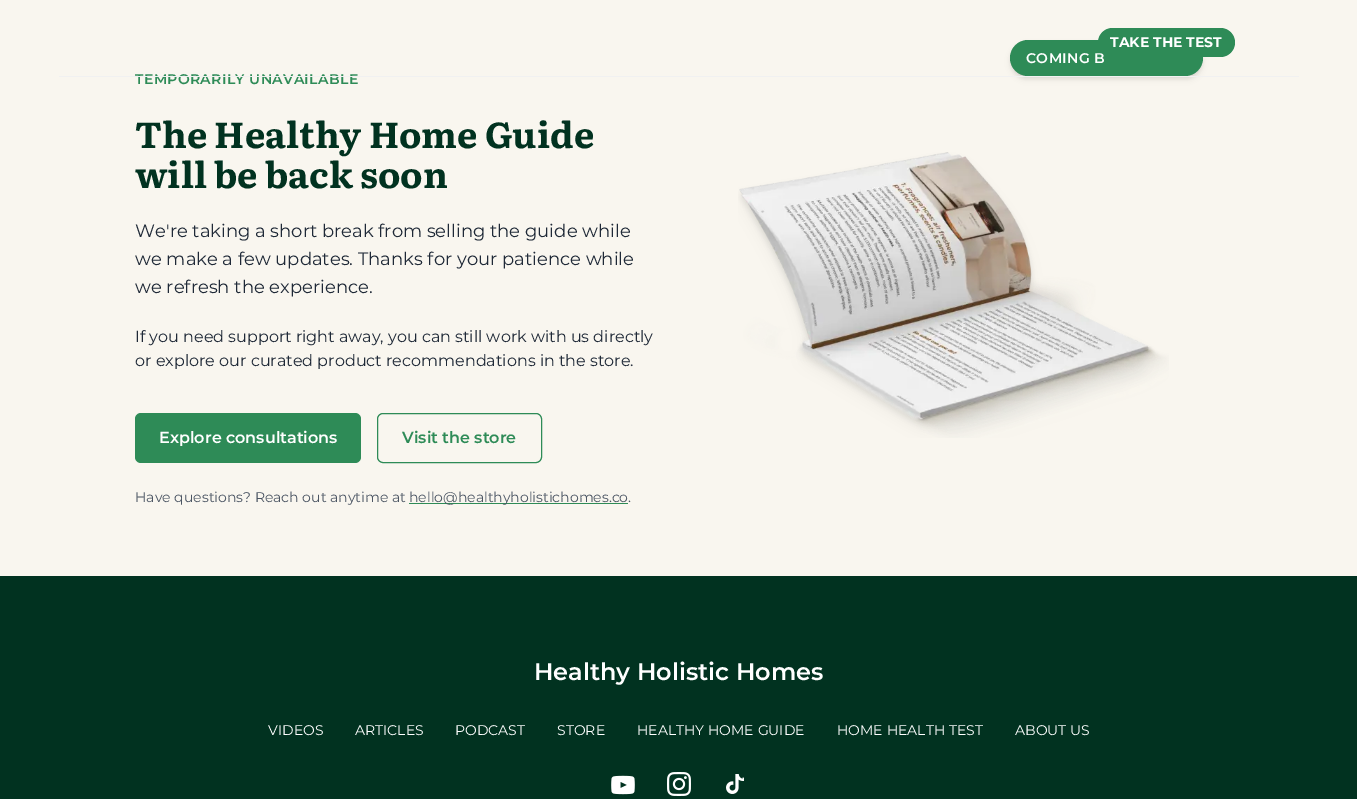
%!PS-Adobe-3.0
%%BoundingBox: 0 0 1357 799
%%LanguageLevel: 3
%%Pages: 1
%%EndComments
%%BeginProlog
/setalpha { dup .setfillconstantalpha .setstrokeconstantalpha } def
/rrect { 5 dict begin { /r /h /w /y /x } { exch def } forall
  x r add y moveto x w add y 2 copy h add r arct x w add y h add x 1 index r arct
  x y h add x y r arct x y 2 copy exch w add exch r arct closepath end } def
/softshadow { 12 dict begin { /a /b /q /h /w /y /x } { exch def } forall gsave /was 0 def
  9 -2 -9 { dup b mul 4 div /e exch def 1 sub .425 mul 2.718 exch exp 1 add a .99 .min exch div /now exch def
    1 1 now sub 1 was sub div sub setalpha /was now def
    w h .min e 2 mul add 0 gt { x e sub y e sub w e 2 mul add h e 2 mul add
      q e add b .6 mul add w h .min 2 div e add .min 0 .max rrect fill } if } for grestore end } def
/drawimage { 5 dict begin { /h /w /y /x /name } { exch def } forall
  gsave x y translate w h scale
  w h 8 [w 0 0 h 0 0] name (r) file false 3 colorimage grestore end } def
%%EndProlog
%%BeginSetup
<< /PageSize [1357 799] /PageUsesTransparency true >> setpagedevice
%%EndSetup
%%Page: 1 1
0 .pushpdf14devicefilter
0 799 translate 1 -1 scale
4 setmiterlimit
0.004 0.196 0.125 setrgbcolor
0 0 1357 799 rectfill
0.976 0.965 0.937 setrgbcolor
0 0 1357 576 rectfill
0 setgray
1012 44 189 32 16 2 0.1 softshadow
1011 45 191 34 17 3 0.1 softshadow
0.18 0.545 0.341 setrgbcolor
1010 40 193 36 18 rrect fill
(images/1.raw) 738 152 431 286 drawimage
135 413 226 50 6 rrect fill
377.5 413.5 164 49 5.5 rrect stroke
409 503 219 1 rectfill
(images/2.raw) 611 775 24 20 drawimage
(images/3.raw) 667 772 24 24 drawimage
(images/4.raw) 726 774 18 20 drawimage
/Montserrat-SemiBold [14 0 0 -14 0 0] selectfont
1 setgray
1026 63 moveto 0.35 0 (COMING B) ashow
0.18 0.545 0.341 setrgbcolor
1098 28 137 29 14.5 rrect fill
/Montserrat-Bold [14 0 0 -14 0 0] selectfont
1 setgray
1110 47 moveto (TAKE THE TEST) show
/Montserrat-SemiBold [14 0 0 -14 0 0] selectfont
0.18 0.545 0.341 setrgbcolor
135 84 moveto 0.35 0 (TEMPORARILY UNAVAILABLE) ashow
0.945 setgray
59 76 1240 1 rectfill
/Literata-Bold [36 0 0 -36 0 0] selectfont
0.004 0.196 0.125 setrgbcolor
135 148 moveto (The Healthy Home Guide) show
135 188 moveto (will be back soon) show
/Montserrat-Regular [18 0 0 -18 0 0] selectfont
0.122 0.161 0.216 setrgbcolor
135 237 moveto (We're taking a short break from selling the guide while) show
135 265 moveto (we make a few updates. Thanks for your patience while) show
135 293 moveto (we refresh the experience.) show
/Montserrat-Regular [16 0 0 -16 0 0] selectfont
135 342 moveto (If you need support right away, you can still work with us directly) show
135 366 moveto (or explore our curated product recommendations in the store.) show
/Montserrat-SemiBold [16 0 0 -16 0 0] selectfont
1 setgray
159 443 moveto (Explore consultations) show
0.18 0.545 0.341 setrgbcolor
402 443 moveto (Visit the store) show
/Montserrat-Regular [14 0 0 -14 0 0] selectfont
0.294 0.333 0.388 setrgbcolor
135 502 moveto (Have questions? Reach out anytime at) show
409 502 moveto (hello@healthyholistichomes.co.) show
/Montserrat-SemiBold [24 0 0 -24 0 0] selectfont
1 setgray
534 680 moveto (Healthy Holistic Homes) show
/Montserrat-Regular [14 0 0 -14 0 0] selectfont
268 735 moveto (VIDEOS) show
355 735 moveto (ARTICLES) show
455 735 moveto (PODCAST) show
557 735 moveto (STORE) show
637 735 moveto (HEALTHY HOME GUIDE) show
837 735 moveto (HOME HEALTH TEST) show
1015 735 moveto (ABOUT US) show
.poppdf14devicefilter showpage
%%EOF
